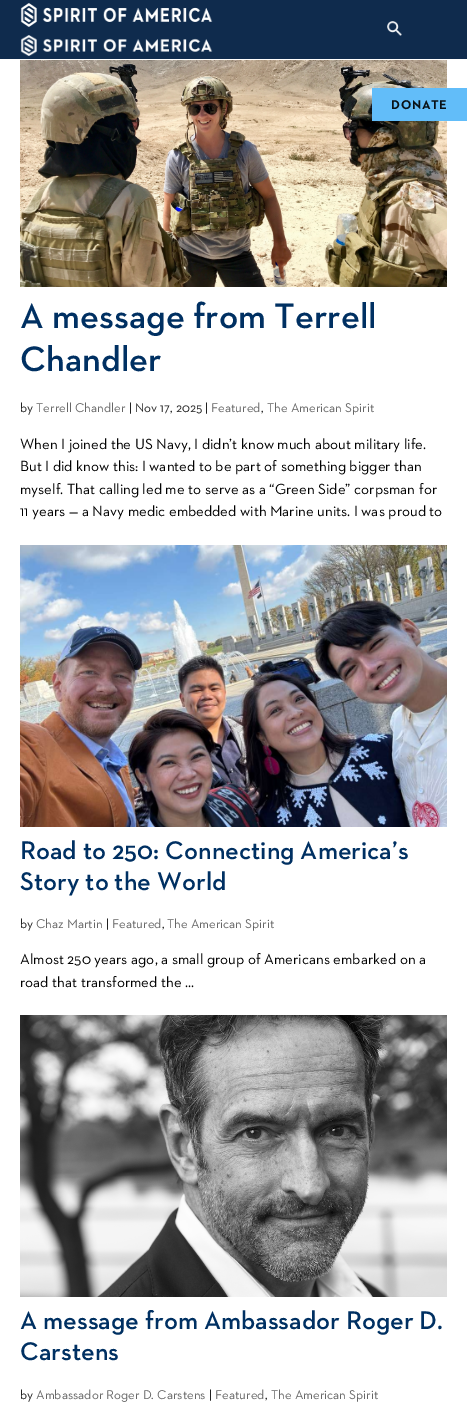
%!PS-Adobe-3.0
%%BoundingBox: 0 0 467 1412
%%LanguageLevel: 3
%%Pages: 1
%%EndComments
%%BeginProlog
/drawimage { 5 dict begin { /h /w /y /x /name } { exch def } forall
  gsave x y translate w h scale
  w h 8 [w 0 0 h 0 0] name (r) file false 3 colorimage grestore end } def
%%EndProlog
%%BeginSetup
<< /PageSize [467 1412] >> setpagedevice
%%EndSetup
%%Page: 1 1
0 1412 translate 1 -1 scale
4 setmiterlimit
1 setgray
0 0 467 1412 rectfill
0.059 0.169 0.302 setrgbcolor
0 0 467 59 rectfill
(images/1.raw) 20 3 193 24 drawimage
(images/2.raw) 20 35 193 21 drawimage
(images/3.raw) 387 21 15 15 drawimage
(images/4.raw) 20 60 427 227 drawimage
0.384 0.741 0.976 setrgbcolor
372 88 95 33 rectfill
(images/5.raw) 20 545 427 282 drawimage
(images/6.raw) 20 1015 427 282 drawimage
/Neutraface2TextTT-Bold [13 0 0 -13 0 0] selectfont
0.035 0.067 0.086 setrgbcolor
391 109 moveto 0.75 0 (DONATE) ashow
/Neutraface2TextTT-SemiBold [36 0 0 -36 0 0] selectfont
0 0.188 0.384 setrgbcolor
20 328 moveto (A message from Terrell) show
20 371 moveto (Chandler) show
/Neutraface2TextTT-Regular [13 0 0 -13 0 0] selectfont
0.129 setgray
20 412 moveto (by) show
0.4 setgray
36 412 moveto (Terrell Chandler) show
0.129 setgray
129 412 moveto (| Nov 17, 2025 |) show
0.4 setgray
211 412 moveto (Featured) show
0.129 setgray
261 412 moveto (,) show
0.4 setgray
267 412 moveto (The American Spirit) show
/Neutraface2TextTT-Regular [15 0 0 -15 0 0] selectfont
0 setgray
20 449 moveto (When I joined the US Navy, I didn’t know much about military life.) show
20 471 moveto (But I did know this: I wanted to be part of something bigger than) show
20 494 moveto (myself. That calling led me to serve as a “Green Side” corpsman for) show
20 516 moveto (11 years — a Navy medic embedded with Marine units. I was proud to) show
/Neutraface2TextTT-SemiBold [26 0 0 -26 0 0] selectfont
0 0.188 0.384 setrgbcolor
20 859 moveto (Road to 250: Connecting America’s) show
20 890 moveto (Story to the World) show
/Neutraface2TextTT-Regular [13 0 0 -13 0 0] selectfont
0.129 setgray
20 928 moveto (by) show
0.4 setgray
36 928 moveto (Chaz Martin) show
0.129 setgray
106 928 moveto (|) show
0.4 setgray
112 928 moveto (Featured) show
0.129 setgray
162 928 moveto (,) show
0.4 setgray
167 928 moveto (The American Spirit) show
/Neutraface2TextTT-Regular [15 0 0 -15 0 0] selectfont
0 setgray
20 964 moveto (Almost 250 years ago, a small group of Americans embarked on a) show
20 987 moveto (road that transformed the ...) show
/Neutraface2TextTT-SemiBold [26 0 0 -26 0 0] selectfont
0 0.188 0.384 setrgbcolor
20 1329 moveto (A message from Ambassador Roger D.) show
20 1360 moveto (Carstens) show
/Neutraface2TextTT-Regular [13 0 0 -13 0 0] selectfont
0.129 setgray
20 1399 moveto (by) show
0.4 setgray
36 1399 moveto (Ambassador Roger D. Carstens) show
0.129 setgray
209 1399 moveto (|) show
0.4 setgray
215 1399 moveto (Featured) show
0.129 setgray
265 1399 moveto (,) show
0.4 setgray
271 1399 moveto (The American Spirit) show
showpage
%%EOF
